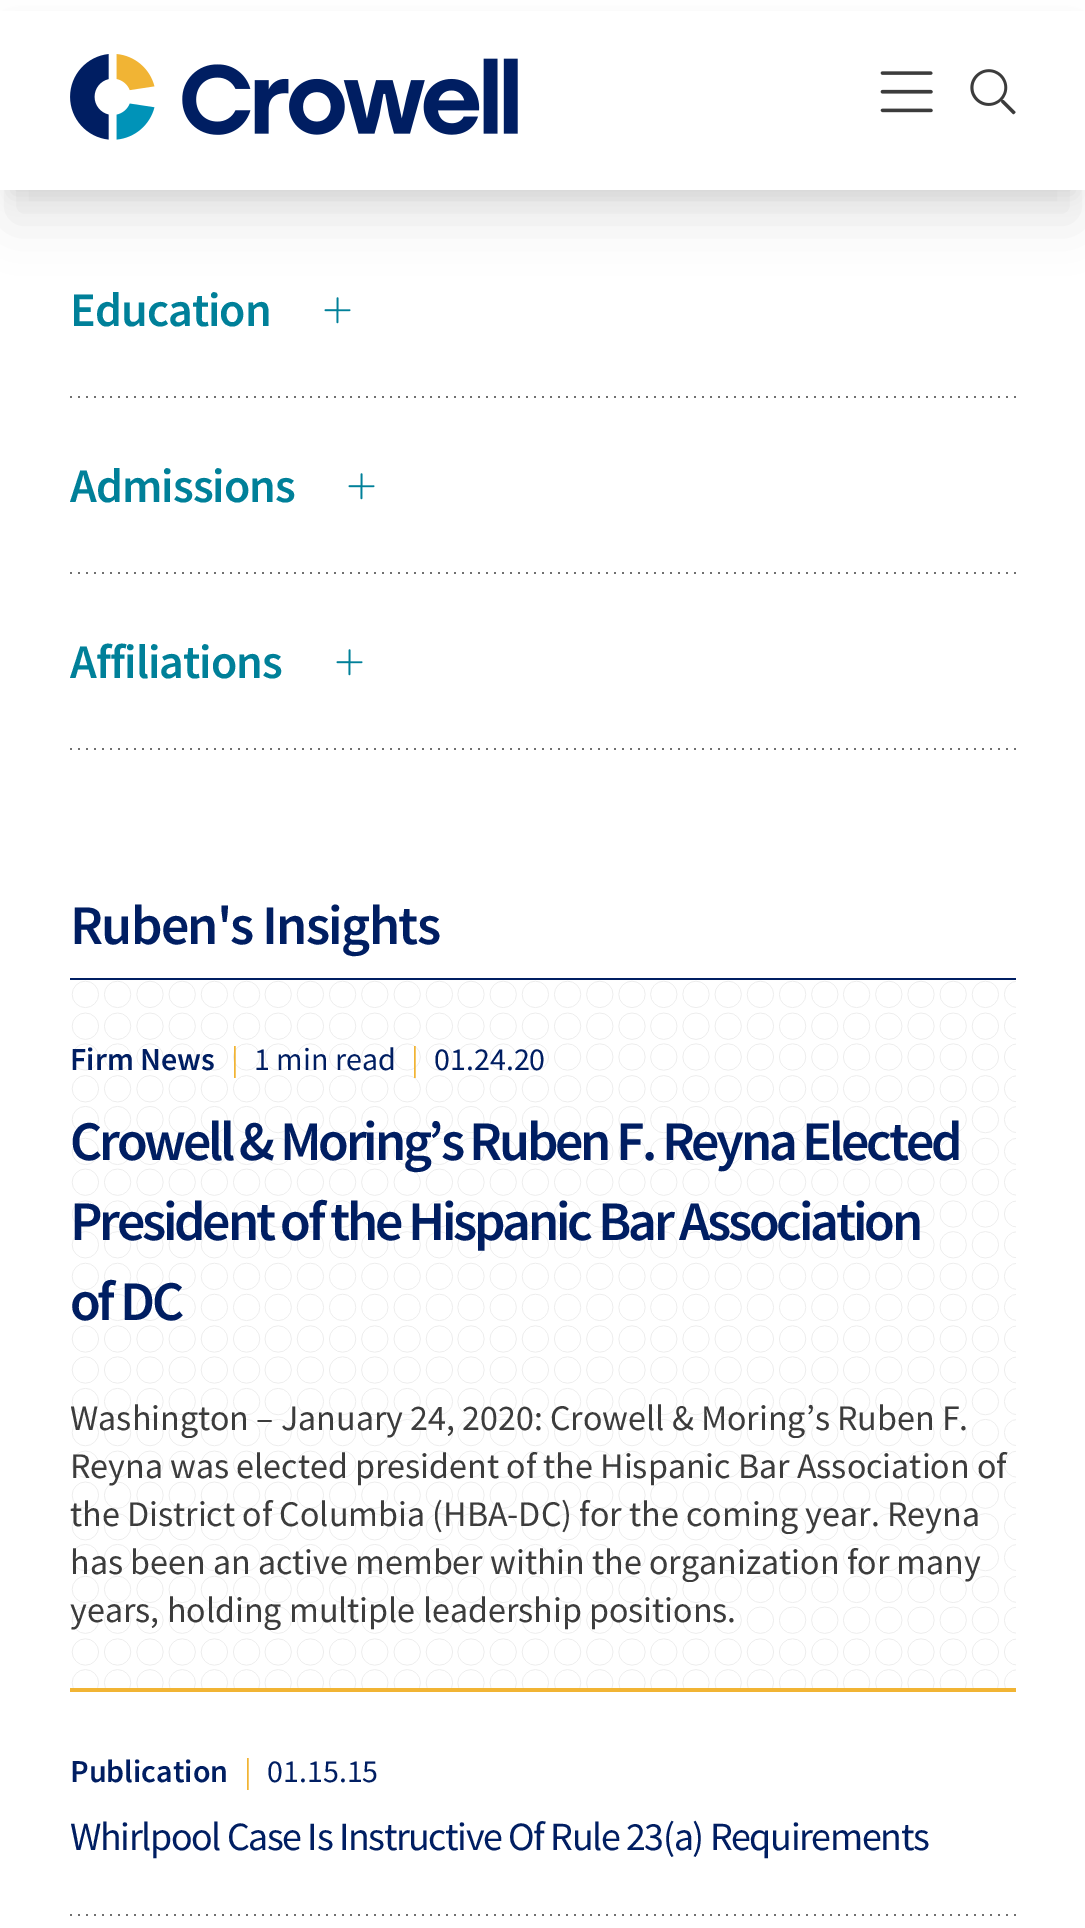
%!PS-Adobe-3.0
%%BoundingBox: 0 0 1085 1928
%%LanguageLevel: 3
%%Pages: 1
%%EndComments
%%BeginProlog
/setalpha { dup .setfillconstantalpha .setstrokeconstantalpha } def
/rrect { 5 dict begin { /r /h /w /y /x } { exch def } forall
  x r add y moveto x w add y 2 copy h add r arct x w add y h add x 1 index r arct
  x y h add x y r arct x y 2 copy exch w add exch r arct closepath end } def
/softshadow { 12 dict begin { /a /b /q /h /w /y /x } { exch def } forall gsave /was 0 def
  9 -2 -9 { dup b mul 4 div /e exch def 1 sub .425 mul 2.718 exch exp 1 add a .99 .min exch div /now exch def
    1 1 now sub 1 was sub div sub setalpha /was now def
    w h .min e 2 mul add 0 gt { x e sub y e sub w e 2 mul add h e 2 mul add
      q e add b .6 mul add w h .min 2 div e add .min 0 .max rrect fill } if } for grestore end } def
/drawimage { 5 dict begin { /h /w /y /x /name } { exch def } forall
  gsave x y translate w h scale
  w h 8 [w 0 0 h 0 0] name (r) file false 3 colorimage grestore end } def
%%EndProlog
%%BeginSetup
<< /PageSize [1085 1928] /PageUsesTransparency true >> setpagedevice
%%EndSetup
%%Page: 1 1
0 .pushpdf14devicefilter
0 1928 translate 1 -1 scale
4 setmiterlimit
1 setgray
0 0 1085 1928 rectfill
0 setgray
12 28 1062 166 0 10 0.1 softshadow
10 50 1066 170 0 25 0.1 softshadow
1 setgray
0 11 1085 179 rectfill
(images/1.raw) 70 54 448 86 drawimage
(images/2.raw) 880 71 53 42 drawimage
(images/3.raw) 970 69 46 46 drawimage
(images/4.raw) 70 396 946 2 drawimage
(images/5.raw) 324 297 27 27 drawimage
(images/4.raw) 70 572 946 2 drawimage
(images/5.raw) 348 473 27 27 drawimage
(images/4.raw) 70 748 946 2 drawimage
(images/5.raw) 336 649 27 27 drawimage
0 0.118 0.384 setrgbcolor
70 978 946 2 rectfill
(images/6.raw) 71 980 945 708 drawimage
0.945 0.706 0.204 setrgbcolor
70 1688 946 4 rectfill
(images/4.raw) 70 1914 946 2 drawimage
/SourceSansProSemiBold-SemiBold [48 0 0 -48 0 0] selectfont
0 0.502 0.6 setrgbcolor
70 326 moveto -1 0 (Education) ashow
70 502 moveto -1 0 (Admissions) ashow
70 678 moveto -1 0 (Affiliations) ashow
/SourceSansProSemiBold-SemiBold [56 0 0 -56 0 0] selectfont
0 0.118 0.384 setrgbcolor
70 944 moveto -1.75 0 (Ruben's Insights) ashow
/SourceSansProSemiBold-SemiBold [32 0 0 -32 0 0] selectfont
70 1070 moveto (Firm News) show
/SourceSansPro-Regular [32 0 0 -32 0 0] selectfont
0.945 0.706 0.204 setrgbcolor
231 1070 moveto (|) show
0 0.118 0.384 setrgbcolor
254 1070 moveto (1 min read) show
0.945 0.706 0.204 setrgbcolor
411 1070 moveto (|) show
0 0.118 0.384 setrgbcolor
434 1070 moveto (01.24.20) show
/SourceSansProSemiBold-SemiBold [56 0 0 -56 0 0] selectfont
70 1160 moveto -3.3 0 (Crowell & Moring’s Ruben F. Reyna Elected) ashow
70 1240 moveto -3.3 0 (President of the Hispanic Bar Association) ashow
70 1320 moveto -3.3 0 (of DC) ashow
/SourceSansPro-Regular [36 0 0 -36 0 0] selectfont
0.235 setgray
70 1430 moveto (Washington – January 24, 2020: Crowell & Moring’s Ruben F.) show
70 1478 moveto (Reyna was elected president of the Hispanic Bar Association of) show
70 1526 moveto (the District of Columbia \(HBA-DC\) for the coming year. Reyna) show
70 1574 moveto (has been an active member within the organization for many) show
70 1622 moveto (years, holding multiple leadership positions.) show
/SourceSansProSemiBold-SemiBold [32 0 0 -32 0 0] selectfont
0 0.118 0.384 setrgbcolor
70 1782 moveto (Publication) show
/SourceSansPro-Regular [32 0 0 -32 0 0] selectfont
0.945 0.706 0.204 setrgbcolor
244 1782 moveto (|) show
0 0.118 0.384 setrgbcolor
267 1782 moveto (01.15.15) show
/SourceSansPro-Regular [40 0 0 -40 0 0] selectfont
70 1850 moveto -1.4 0 (Whirlpool Case Is Instructive Of Rule 23\(a\) Requirements) ashow
.poppdf14devicefilter showpage
%%EOF
